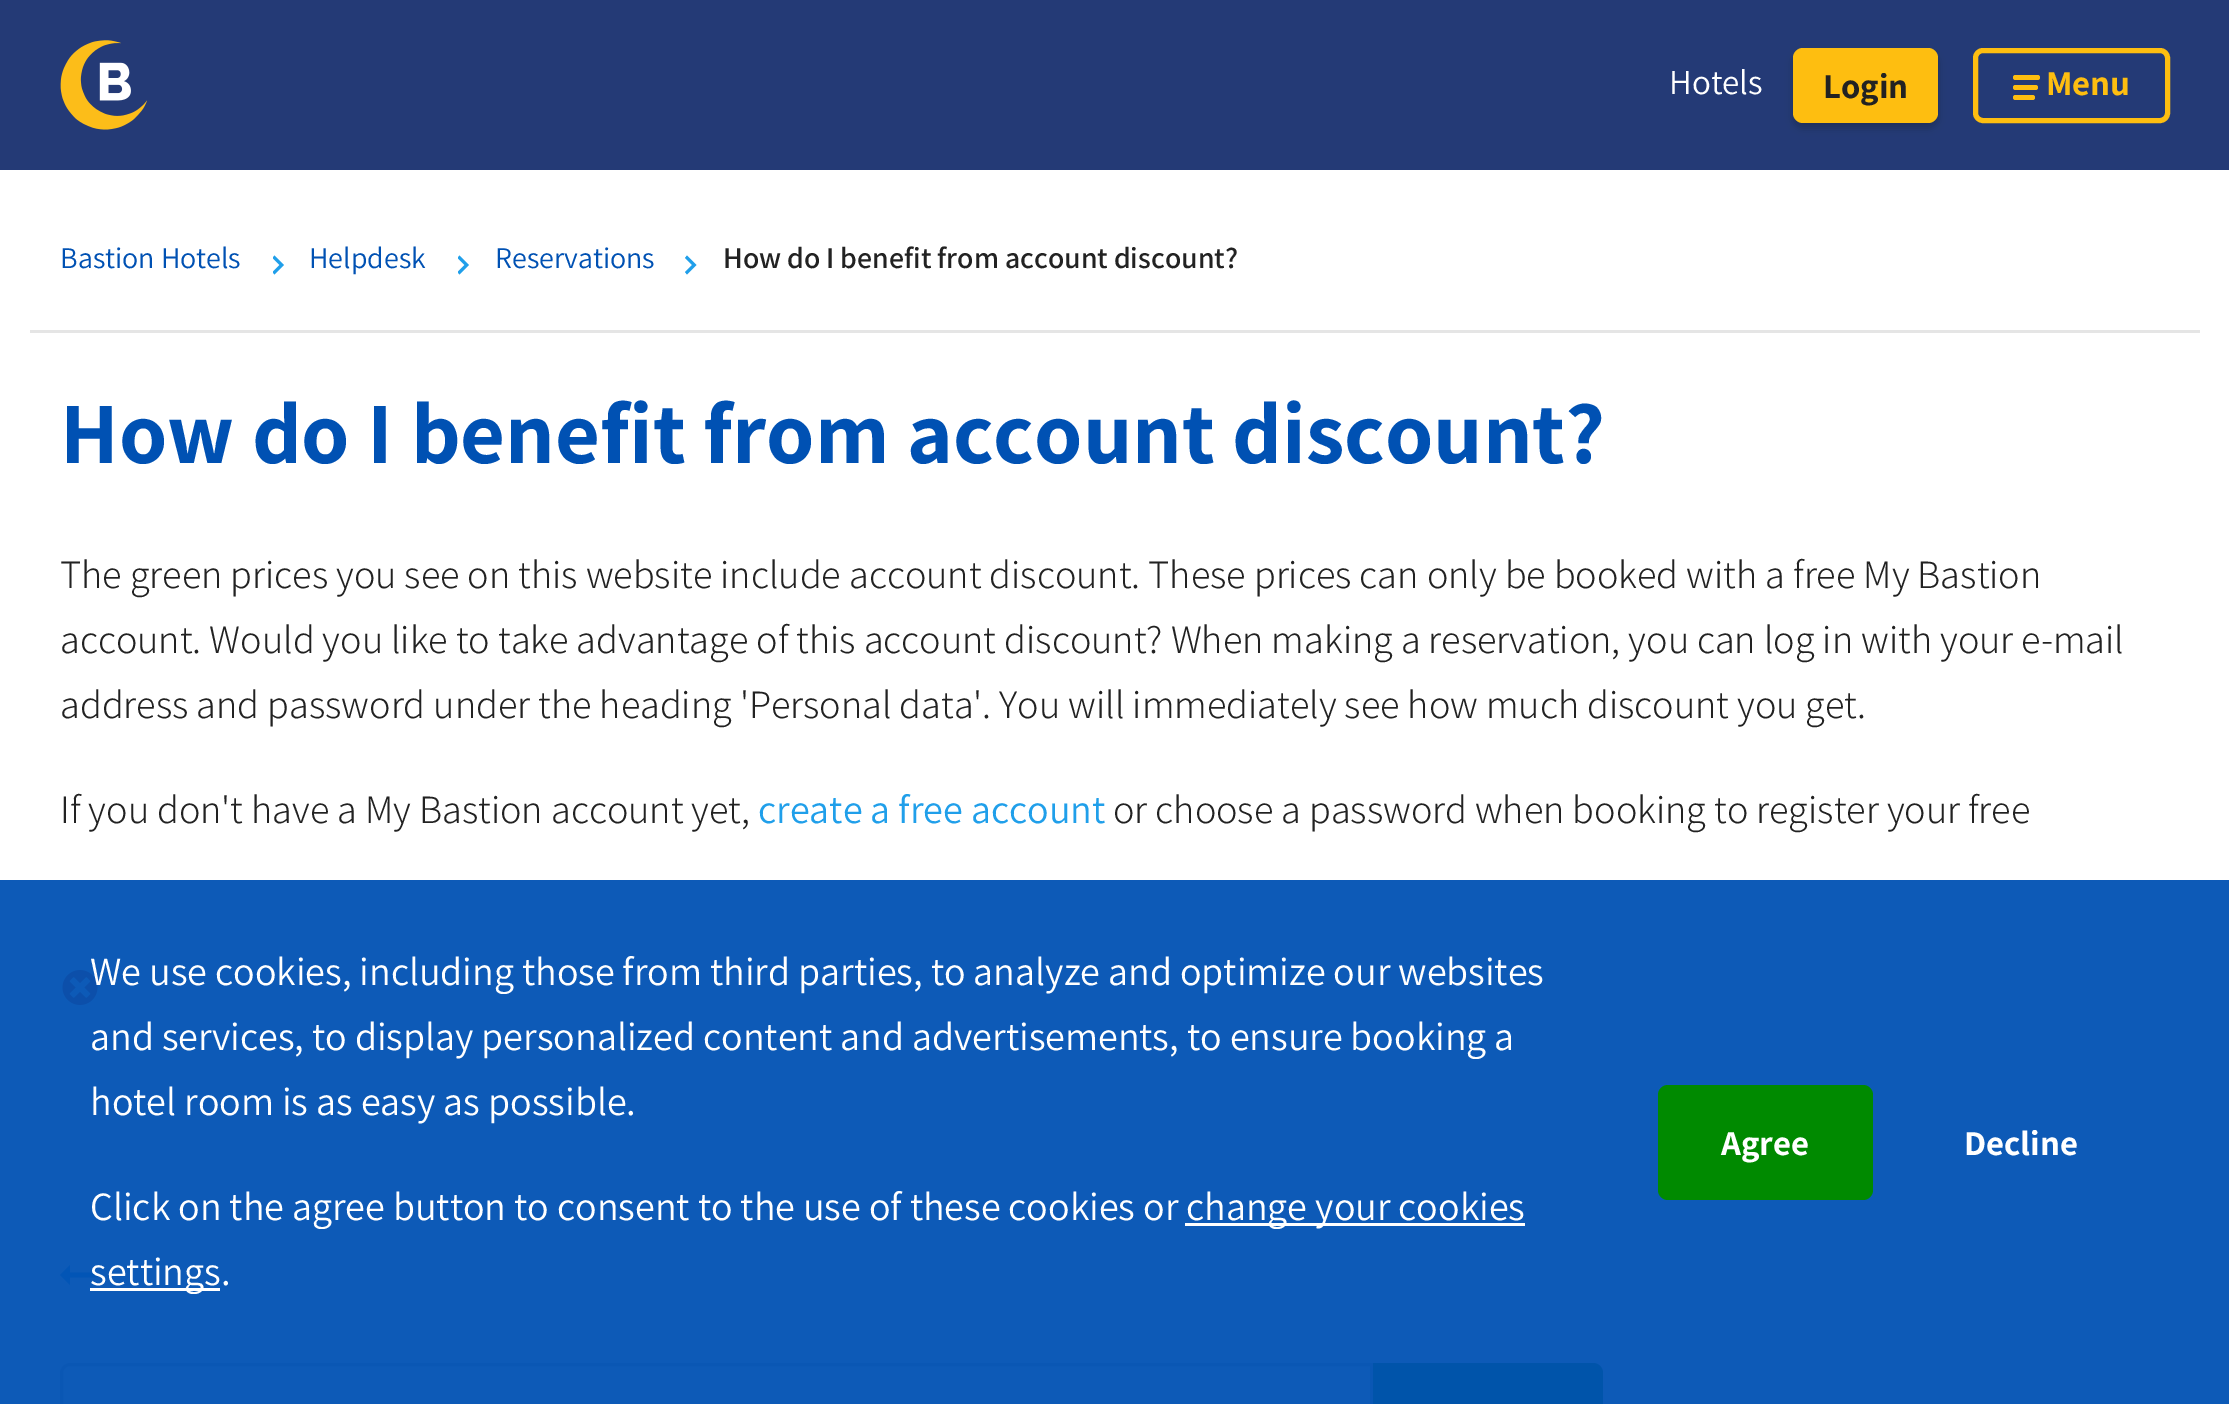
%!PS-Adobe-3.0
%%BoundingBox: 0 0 2229 1404
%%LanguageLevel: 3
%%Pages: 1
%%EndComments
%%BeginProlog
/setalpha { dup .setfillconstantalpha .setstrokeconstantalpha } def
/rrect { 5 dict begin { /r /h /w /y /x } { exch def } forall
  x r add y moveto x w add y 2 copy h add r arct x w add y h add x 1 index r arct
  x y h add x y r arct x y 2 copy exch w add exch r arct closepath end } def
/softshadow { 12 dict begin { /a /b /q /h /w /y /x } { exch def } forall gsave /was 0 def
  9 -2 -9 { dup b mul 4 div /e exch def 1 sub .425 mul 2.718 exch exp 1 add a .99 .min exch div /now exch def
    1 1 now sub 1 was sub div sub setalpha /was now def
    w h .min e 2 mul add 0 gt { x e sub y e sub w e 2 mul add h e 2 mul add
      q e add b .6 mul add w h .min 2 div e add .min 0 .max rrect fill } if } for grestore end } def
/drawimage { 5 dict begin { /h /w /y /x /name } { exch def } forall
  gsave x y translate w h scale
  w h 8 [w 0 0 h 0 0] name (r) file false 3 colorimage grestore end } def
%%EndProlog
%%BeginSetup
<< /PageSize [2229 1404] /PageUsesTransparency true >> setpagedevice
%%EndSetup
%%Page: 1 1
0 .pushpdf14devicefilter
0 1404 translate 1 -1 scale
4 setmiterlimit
1 setgray
0 0 2229 1404 rectfill
0.141 0.227 0.463 setrgbcolor
0 0 2229 170 rectfill
(images/1.raw) 60 40 88 90 drawimage
0 setgray
1793 53 145 75 10 4 0.2 softshadow
0.996 0.745 0.063 setrgbcolor
1793 48 145 75 10 rrect fill
5 setlinewidth
1975.5 50.5 192 70 7.5 rrect stroke
2013 75 27 5 2.5 rrect fill
2013 85 25 5 2.5 rrect fill
2013 95 22 5 2.5 rrect fill
0.898 setgray
30 330 2170 3 rectfill
gsave
273 250 12 30 rectclip
0.125 0.624 0.918 setrgbcolor
newpath 284 265 moveto 274.5 255.5 lineto 272.5 258 lineto 279.5 265 lineto 272.5 272 lineto 274.5 274.5 lineto closepath fill
grestore
gsave
458 250 12 30 rectclip
0.125 0.624 0.918 setrgbcolor
newpath 469 265 moveto 459.5 255.5 lineto 457.5 258 lineto 464.5 265 lineto 457.5 272 lineto 459.5 274.5 lineto closepath fill
grestore
0.125 0.624 0.918 setrgbcolor
newpath 696.5 265 moveto 687 255.5 lineto 685 258 lineto 692 265 lineto 685 272 lineto 687 274.5 lineto closepath fill
(images/2.raw) 62 970 36 35 drawimage
newpath 70 1280 moveto 70 1285 lineto 60 1275 lineto 70 1265 lineto 70 1272.5 lineto 97.5 1272.5 lineto 97.5 1277.5 lineto 70 1277.5 lineto closepath fill
0.796 setgray
3 setlinewidth
newpath 70 1364.5 moveto 1371.5 1364.5 lineto 1371.5 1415.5 lineto 70 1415.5 lineto 65.5 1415.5 61.5 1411.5 61.5 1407 curveto 61.5 1373 lineto 61.5 1368.5 65.5 1364.5 70 1364.5 curveto closepath stroke
0 0.541 0 setrgbcolor
newpath 1373 1363 moveto 1593 1363 lineto 1598.5 1363 1603 1367.5 1603 1373 curveto 1603 1404 lineto 1603 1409.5 1598.5 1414 1593 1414 curveto 1373 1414 lineto closepath fill
0.95 setalpha
0 0.318 0.702 setrgbcolor
0 880 2229 524 rectfill
1 setalpha
1 setgray
1185 1223 340 3 rectfill
90 1288 130 3 rectfill
0 0.541 0 setrgbcolor
1658 1085 215 115 10 rrect fill
/Assistant-Regular [35 0 0 -35 0 0] selectfont
1 setgray
1669 94 moveto (Hotels) show
/Assistant-Bold [35 0 0 -35 0 0] selectfont
0.133 setgray
1823 98 moveto (Login) show
0.996 0.745 0.063 setrgbcolor
2046 95 moveto (Menu) show
/Assistant-Regular [30 0 0 -30 0 0] selectfont
0 0.318 0.702 setrgbcolor
60 268 moveto (Bastion Hotels) show
309 268 moveto (Helpdesk) show
495 268 moveto (Reservations) show
/Assistant-SemiBold [30 0 0 -30 0 0] selectfont
0.133 setgray
723 268 moveto (How do I benefit from account discount?) show
/Assistant-Bold [87.5 0 0 -87.5 0 0] selectfont
0 0.318 0.702 setrgbcolor
60 463 moveto (How do I benefit from account discount?) show
/Assistant-Light [40 0 0 -40 0 0] selectfont
0.133 setgray
60 588 moveto (The green prices you see on this website include account discount. These prices can only be booked with a free My Bastion) show
60 653 moveto (account. Would you like to take advantage of this account discount? When making a reservation, you can log in with your e-mail) show
60 718 moveto (address and password under the heading 'Personal data'. You will immediately see how much discount you get.) show
60 823 moveto (If you don't have a My Bastion account yet,) show
/Assistant-Regular [40 0 0 -40 0 0] selectfont
0.125 0.624 0.918 setrgbcolor
758 823 moveto (create a free account) show
/Assistant-Light [40 0 0 -40 0 0] selectfont
0.133 setgray
1113 823 moveto (or choose a password when booking to register your free) show
/Assistant-Regular [40 0 0 -40 0 0] selectfont
1 setgray
90 985 moveto (We use cookies, including those from third parties, to analyze and optimize our websites) show
90 1050 moveto (and services, to display personalized content and advertisements, to ensure booking a) show
90 1115 moveto (hotel room is as easy as possible.) show
90 1220 moveto (Click on the agree button to consent to the use of these cookies or) show
1186 1220 moveto (change your cookies) show
90 1285 moveto (settings) show
221 1285 moveto (.) show
/Assistant-Bold [35 0 0 -35 0 0] selectfont
1721 1155 moveto (Agree) show
1964 1155 moveto (Decline) show
.poppdf14devicefilter showpage
%%EOF
